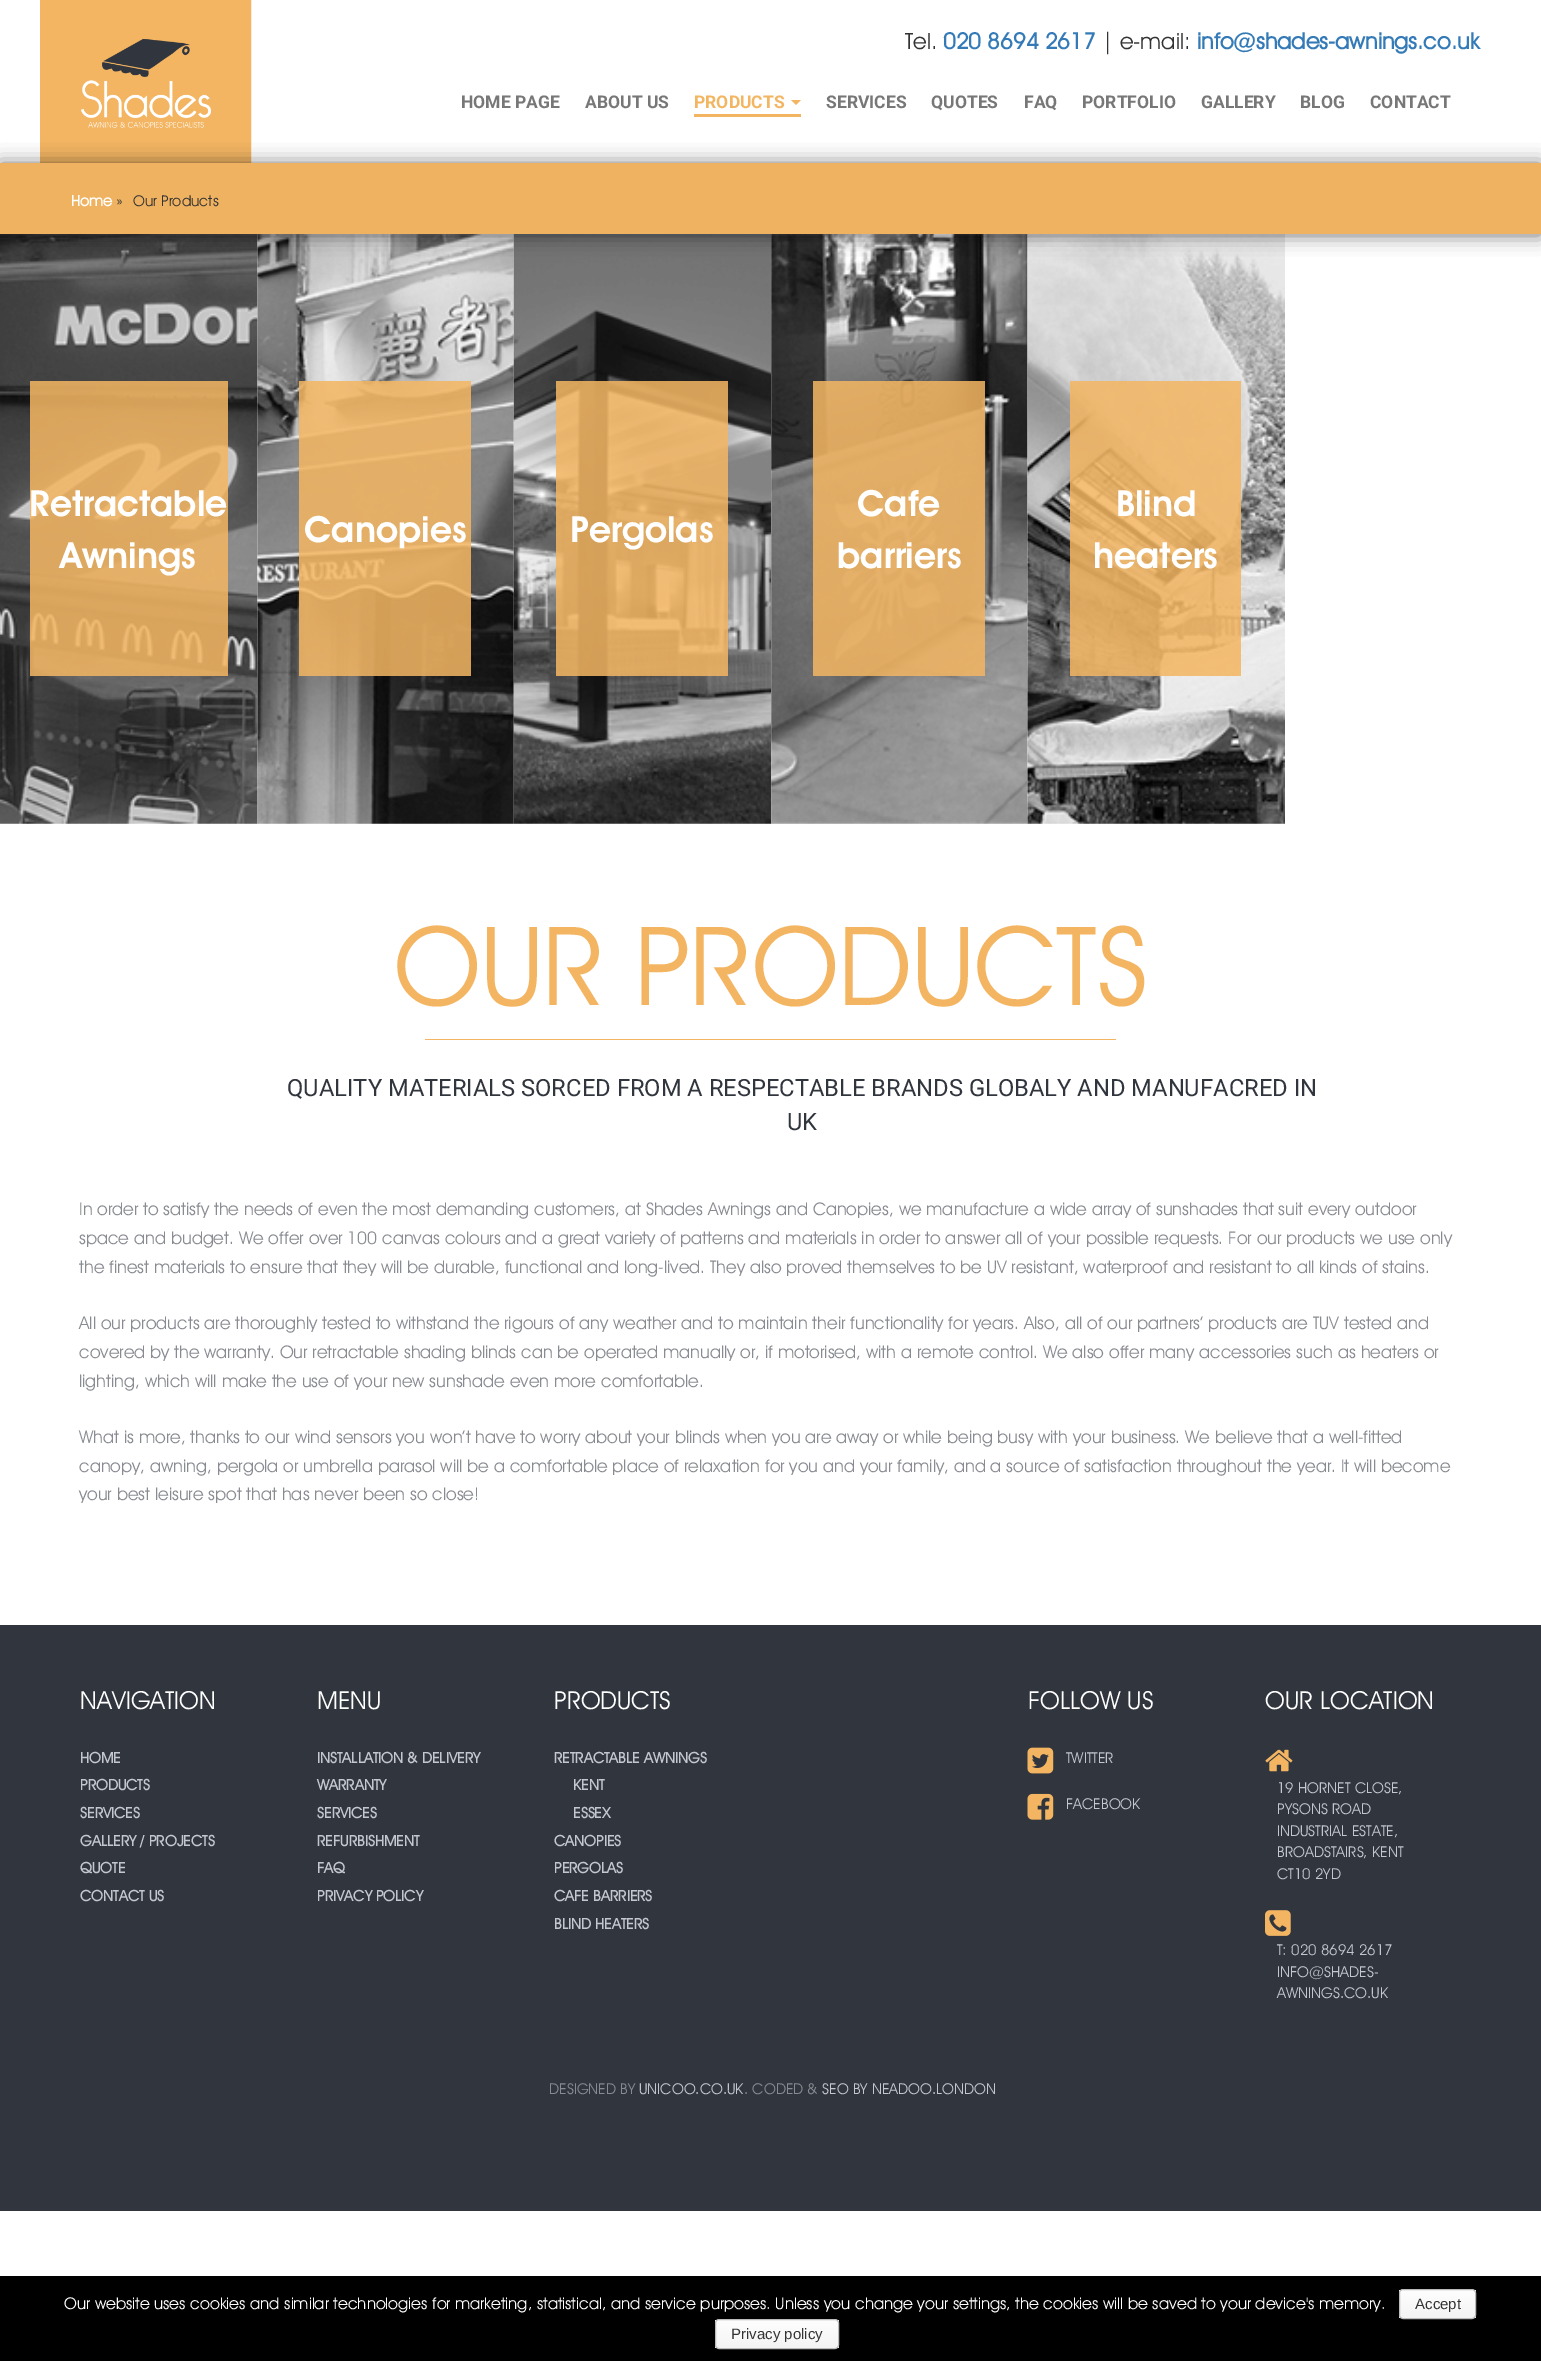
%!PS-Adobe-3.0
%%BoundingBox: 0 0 1541 2361
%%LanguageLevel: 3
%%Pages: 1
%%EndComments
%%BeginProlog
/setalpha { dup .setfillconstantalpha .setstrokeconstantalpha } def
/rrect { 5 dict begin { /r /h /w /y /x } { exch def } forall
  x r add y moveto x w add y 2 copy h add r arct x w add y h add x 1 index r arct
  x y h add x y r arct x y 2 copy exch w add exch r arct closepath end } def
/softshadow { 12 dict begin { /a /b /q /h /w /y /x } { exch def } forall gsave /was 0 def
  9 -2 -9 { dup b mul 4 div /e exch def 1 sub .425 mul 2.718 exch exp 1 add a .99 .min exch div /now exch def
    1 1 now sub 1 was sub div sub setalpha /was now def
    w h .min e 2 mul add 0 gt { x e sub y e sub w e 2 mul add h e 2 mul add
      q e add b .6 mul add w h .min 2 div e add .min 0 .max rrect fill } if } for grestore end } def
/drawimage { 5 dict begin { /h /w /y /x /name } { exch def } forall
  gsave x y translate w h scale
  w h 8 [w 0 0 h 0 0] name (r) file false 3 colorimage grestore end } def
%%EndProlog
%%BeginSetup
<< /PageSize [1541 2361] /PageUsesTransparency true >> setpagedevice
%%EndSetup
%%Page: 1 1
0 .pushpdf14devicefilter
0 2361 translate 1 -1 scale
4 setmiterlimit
1 setgray
0 0 1541 2361 rectfill
(images/1.raw) 40 0 212 163 drawimage
0.953 0.71 0.384 setrgbcolor
694 114 107 3 rectfill
newpath 791 100 moveto 801 100 lineto 796 105 lineto closepath fill
(images/2.raw) 0 234 258 590 drawimage
(images/3.raw) 257 234 257 590 drawimage
(images/4.raw) 513 234 259 590 drawimage
(images/5.raw) 771 234 257 590 drawimage
(images/6.raw) 1027 234 258 590 drawimage
0 setgray
0 164 1541 71 0 9.5 0.55 softshadow
0.937 0.698 0.376 setrgbcolor
0 163 1541 71 rectfill
0.86 setalpha
0.953 0.71 0.384 setrgbcolor
30 381 198 295 rectfill
299 381 172 295 rectfill
556 381 172 295 rectfill
813 381 172 295 rectfill
1070 381 171 295 rectfill
1 setalpha
425 1039 691 1 rectfill
0.192 0.208 0.239 setrgbcolor
0 1625 1541 586 rectfill
(images/7.raw) 1027 1747 27 27 drawimage
(images/8.raw) 1027 1793 27 27 drawimage
(images/9.raw) 1265 1749 28 23 drawimage
(images/10.raw) 1265 1910 26 26 drawimage
0 setgray
0 2276 1541 85 rectfill
gsave
1399 2289 77 30 4 rrect clip newpath
gsave newpath 1399 2290 moveto 1476 2290 lineto 1476 2318 lineto 1399 2318 lineto closepath clip newpath
<< /ShadingType 2 /ColorSpace /DeviceRGB /Coords [1438 2290 1438 2318] /Extend [true true] /Function << /FunctionType 2 /Domain [0 1] /C0 [0.996 0.996 0.996] /C1 [0.957 0.957 0.957] /N 1 >> >> shfill grestore
grestore
0.733 setgray
1399.5 2289.5 76 29 3.5 rrect stroke
gsave
715 2319 124 30 4 rrect clip newpath
gsave newpath 715 2320 moveto 839 2320 lineto 839 2348 lineto 715 2348 lineto closepath clip newpath
<< /ShadingType 2 /ColorSpace /DeviceRGB /Coords [777 2320 777 2348] /Extend [true true] /Function << /FunctionType 2 /Domain [0 1] /C0 [0.996 0.996 0.996] /C1 [0.957 0.957 0.957] /N 1 >> >> shfill grestore
grestore
715.5 2319.5 123 29 3.5 rrect stroke
/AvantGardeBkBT-Regular [22.5 0 0 -22.5 0 0] selectfont
0.2 setgray
905 49 moveto (Tel.) show
/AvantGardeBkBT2-Bold [22.5 0 0 -22.5 0 0] selectfont
0.2 0.478 0.718 setrgbcolor
943 49 moveto (020 8694 2617) show
/AvantGardeBkBT-Regular [22.5 0 0 -22.5 0 0] selectfont
0.2 setgray
1102 49 moveto (| e-mail:) show
/AvantGardeBkBT2-Bold [22.5 0 0 -22.5 0 0] selectfont
0.2 0.478 0.718 setrgbcolor
1197 49 moveto (info@shades-awnings.co.uk) show
/Roboto-Bold [17.5 0 0 -17.5 0 0] selectfont
0.467 setgray
461 108 moveto (HOME PAGE) show
585 108 moveto (ABOUT US) show
0.953 0.71 0.384 setrgbcolor
694 108 moveto (PRODUCTS) show
0.467 setgray
826 108 moveto (SERVICES) show
931 108 moveto (QUOTES) show
1024 108 moveto (FAQ) show
1082 108 moveto (PORTFOLIO) show
1201 108 moveto (GALLERY) show
1300 108 moveto (BLOG) show
1370 108 moveto (CONTACT) show
/AvantGardeBkBT2-Bold [15 0 0 -15 0 0] selectfont
1 setgray
71 206 moveto (Home) show
/AvantGardeBkBT-Regular [15 0 0 -15 0 0] selectfont
0.2 setgray
116 206 moveto (») show
133 206 moveto (Our Products) show
/AvantGardeBkBT-Bold [36.25 0 0 -36.25 0 0] selectfont
1 setgray
29 516 moveto (Retractable) show
60 568 moveto (Awnings) show
304 542 moveto (Canopies) show
570 542 moveto (Pergolas) show
857 516 moveto (Cafe) show
837 568 moveto (barriers) show
1116 516 moveto (Blind) show
1093 568 moveto (heaters) show
/AvantGardeBkBT-Regular [110 0 0 -110 0 0] selectfont
0.953 0.71 0.384 setrgbcolor
394 1005 moveto (OUR PRODUCTS) show
/Roboto-Regular [23.75 0 0 -23.75 0 0] selectfont
0.192 0.208 0.239 setrgbcolor
287 1096 moveto (QUALITY MATERIALS SORCED FROM A RESPECTABLE BRANDS GLOBALY AND MANUFACRED IN) show
787 1130 moveto (UK) show
/AvantGardeBkBT-Regular [17.5 0 0 -17.5 0 0] selectfont
0.533 0.545 0.569 setrgbcolor
79 1215 moveto (In order to satisfy the needs of even the most demanding customers, at Shades Awnings and Canopies, we manufacture a wide array of sunshades that suit every outdoor) show
79 1244 moveto (space and budget. We offer over 100 canvas colours and a great variety of patterns and materials in order to answer all of your possible requests. For our products we use only) show
79 1273 moveto (the finest materials to ensure that they will be durable, functional and long-lived. They also proved themselves to be UV resistant, waterproof and resistant to all kinds of stains.) show
79 1329 moveto (All our products are thoroughly tested to withstand the rigours of any weather and to maintain their functionality for years. Also, all of our partners’ products are TUV tested and) show
79 1358 moveto (covered by the warranty. Our retractable shading blinds can be operated manually or, if motorised, with a remote control. We also offer many accessories such as heaters or) show
79 1387 moveto (lighting, which will make the use of your new sunshade even more comfortable.) show
79 1443 moveto (What is more, thanks to our wind sensors you won’t have to worry about your blinds when you are away or while being busy with your business. We believe that a well-fitted) show
79 1472 moveto (canopy, awning, pergola or umbrella parasol will be a comfortable place of relaxation for you and your family, and a source of satisfaction throughout the year. It will become) show
79 1500 moveto (your best leisure spot that has never been so close!) show
/AvantGardeBkBT-Regular [25 0 0 -25 0 0] selectfont
1 setgray
80 1709 moveto (NAVIGATION) show
/AvantGardeBkBT2-Bold [15 0 0 -15 0 0] selectfont
0.769 0.78 0.812 setrgbcolor
80 1763 moveto (HOME) show
80 1790 moveto (PRODUCTS) show
80 1818 moveto (SERVICES) show
80 1846 moveto (GALLERY / PROJECTS) show
80 1873 moveto (QUOTE) show
80 1901 moveto (CONTACT US) show
/AvantGardeBkBT-Regular [25 0 0 -25 0 0] selectfont
1 setgray
317 1709 moveto (MENU) show
/AvantGardeBkBT2-Bold [15 0 0 -15 0 0] selectfont
0.769 0.78 0.812 setrgbcolor
317 1763 moveto (INSTALLATION & DELIVERY) show
317 1790 moveto (WARRANTY) show
317 1818 moveto (SERVICES) show
317 1846 moveto (REFURBISHMENT) show
317 1873 moveto (FAQ) show
317 1901 moveto (PRIVACY POLICY) show
/AvantGardeBkBT-Regular [25 0 0 -25 0 0] selectfont
1 setgray
554 1709 moveto (PRODUCTS) show
/AvantGardeBkBT2-Bold [15 0 0 -15 0 0] selectfont
0.769 0.78 0.812 setrgbcolor
554 1763 moveto (RETRACTABLE AWNINGS) show
573 1790 moveto (KENT) show
573 1818 moveto (ESSEX) show
554 1846 moveto (CANOPIES) show
554 1873 moveto (PERGOLAS) show
554 1901 moveto (CAFE BARRIERS) show
554 1929 moveto (BLIND HEATERS) show
/AvantGardeBkBT-Regular [25 0 0 -25 0 0] selectfont
1 setgray
1028 1709 moveto (FOLLOW US) show
/AvantGardeBkBT-Regular [15 0 0 -15 0 0] selectfont
0.769 0.78 0.812 setrgbcolor
1066 1763 moveto (TWITTER) show
1066 1809 moveto (FACEBOOK) show
/AvantGardeBkBT-Regular [25 0 0 -25 0 0] selectfont
1 setgray
1265 1709 moveto (OUR LOCATION) show
/AvantGardeBkBT-Regular [15 0 0 -15 0 0] selectfont
0.769 0.78 0.812 setrgbcolor
1277 1793 moveto (19 HORNET CLOSE,) show
1277 1814 moveto (PYSONS ROAD) show
1277 1836 moveto (INDUSTRIAL ESTATE,) show
1277 1857 moveto (BROADSTAIRS, KENT) show
1277 1879 moveto (CT10 2YD) show
1277 1955 moveto (T: 020 8694 2617) show
1277 1977 moveto (INFO@SHADES-) show
1277 1998 moveto (AWNINGS.CO.UK) show
0.533 0.545 0.569 setrgbcolor
549 2094 moveto (DESIGNED BY) show
0.769 0.78 0.812 setrgbcolor
639 2094 moveto (UNICOO.CO.UK) show
0.533 0.545 0.569 setrgbcolor
744 2094 moveto (. CODED &) show
0.769 0.78 0.812 setrgbcolor
822 2094 moveto (SEO BY NEADOO.LONDON) show
/AvantGardeBkBT-Regular [16.25 0 0 -16.25 0 0] selectfont
1 setgray
64 2309 moveto (Our website uses cookies and similar technologies for marketing, statistical, and service purposes. Unless you change your settings, the cookies will be saved to your device's memory.) show
/LiberationSans-Regular [15 0 0 -15 0 0] selectfont
0.2 setgray
1415 2309 moveto (Accept) show
731 2339 moveto (Privacy policy) show
.poppdf14devicefilter showpage
%%EOF
